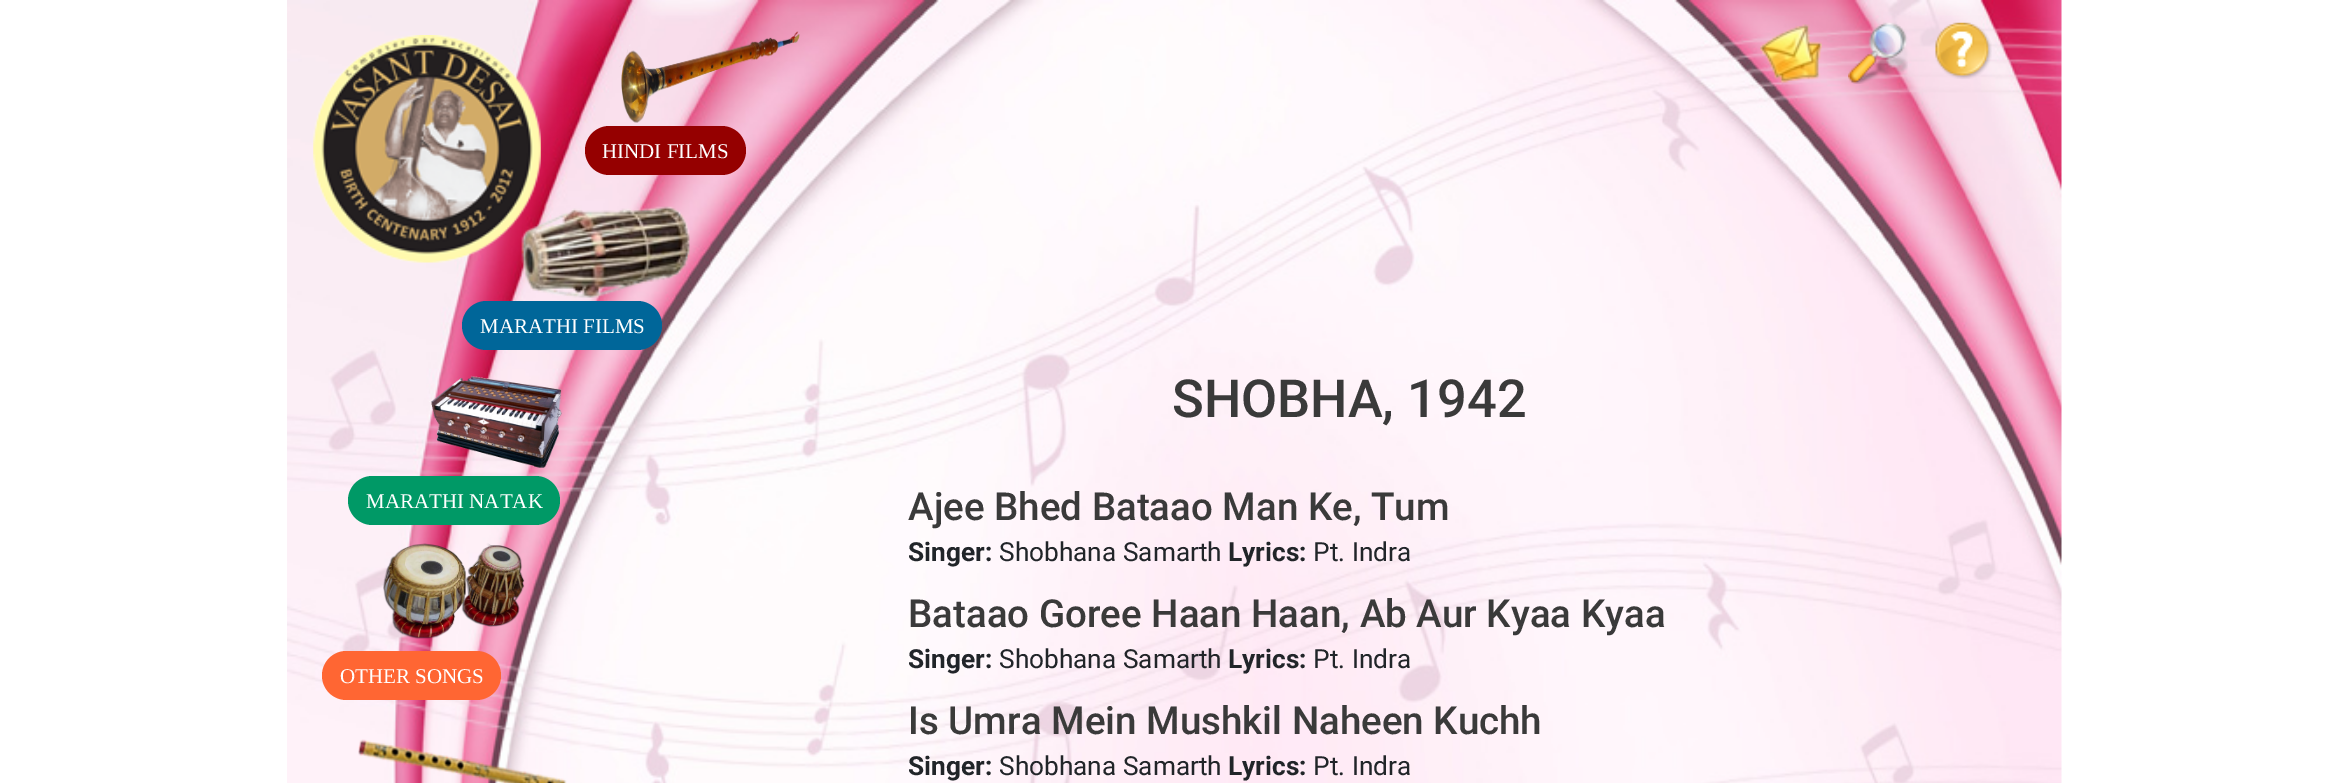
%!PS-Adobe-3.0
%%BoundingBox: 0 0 2347 783
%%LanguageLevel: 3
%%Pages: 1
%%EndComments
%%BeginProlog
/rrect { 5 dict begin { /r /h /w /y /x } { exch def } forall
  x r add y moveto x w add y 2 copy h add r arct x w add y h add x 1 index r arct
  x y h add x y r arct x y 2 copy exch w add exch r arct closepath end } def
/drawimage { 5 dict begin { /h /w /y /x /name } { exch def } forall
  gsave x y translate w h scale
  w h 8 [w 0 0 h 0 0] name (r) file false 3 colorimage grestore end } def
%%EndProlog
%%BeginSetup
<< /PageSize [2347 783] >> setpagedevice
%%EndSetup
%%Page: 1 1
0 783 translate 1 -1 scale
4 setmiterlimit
1 setgray
0 0 2347 783 rectfill
(images/1.raw) 287 0 1775 783 drawimage
(images/2.raw) 313 35 228 228 drawimage
(images/3.raw) 1760 24 62 59 drawimage
(images/4.raw) 1848 22 60 62 drawimage
(images/5.raw) 1935 22 57 57 drawimage
(images/6.raw) 619 31 181 92 drawimage
0.584 0 0 setrgbcolor
585 126 161 49 24.5 rrect fill
(images/7.raw) 521 206 169 92 drawimage
0 0.4 0.6 setrgbcolor
462 301 200 49 24.5 rrect fill
(images/8.raw) 429 375 133 93 drawimage
0 0.6 0.4 setrgbcolor
348 476 212 49 24.5 rrect fill
(images/9.raw) 383 543 142 96 drawimage
1 0.4 0.2 setrgbcolor
322 651 179 49 24.5 rrect fill
(images/10.raw) 358 739 209 44 drawimage
/LiberationSerif-Regular [21 0 0 -21 0 0] selectfont
1 setgray
602 158 moveto (HINDI FILMS) show
480 333 moveto (MARATHI FILMS) show
366 508 moveto (MARATHI NATAK) show
340 683 moveto (OTHER SONGS) show
/Roboto-Medium [52.5 0 0 -52.5 0 0] selectfont
0.227 setgray
1172 417 moveto (SHOBHA, 1942) show
/Roboto-Medium [38.5 0 0 -38.5 0 0] selectfont
908 520 moveto (Ajee Bhed Bataao Man Ke, Tum) show
/Roboto-Bold [26.25 0 0 -26.25 0 0] selectfont
0.129 0.145 0.161 setrgbcolor
908 561 moveto (Singer:) show
/Roboto-Regular [26.25 0 0 -26.25 0 0] selectfont
999 561 moveto (Shobhana Samarth) show
/Roboto-Bold [26.25 0 0 -26.25 0 0] selectfont
1228 561 moveto (Lyrics:) show
/Roboto-Regular [26.25 0 0 -26.25 0 0] selectfont
1313 561 moveto (Pt. Indra) show
/Roboto-Medium [38.5 0 0 -38.5 0 0] selectfont
0.227 setgray
908 627 moveto (Bataao Goree Haan Haan, Ab Aur Kyaa Kyaa) show
/Roboto-Bold [26.25 0 0 -26.25 0 0] selectfont
0.129 0.145 0.161 setrgbcolor
908 668 moveto (Singer:) show
/Roboto-Regular [26.25 0 0 -26.25 0 0] selectfont
999 668 moveto (Shobhana Samarth) show
/Roboto-Bold [26.25 0 0 -26.25 0 0] selectfont
1228 668 moveto (Lyrics:) show
/Roboto-Regular [26.25 0 0 -26.25 0 0] selectfont
1313 668 moveto (Pt. Indra) show
/Roboto-Medium [38.5 0 0 -38.5 0 0] selectfont
0.227 setgray
908 734 moveto (Is Umra Mein Mushkil Naheen Kuchh) show
/Roboto-Bold [26.25 0 0 -26.25 0 0] selectfont
0.129 0.145 0.161 setrgbcolor
908 775 moveto (Singer:) show
/Roboto-Regular [26.25 0 0 -26.25 0 0] selectfont
999 775 moveto (Shobhana Samarth) show
/Roboto-Bold [26.25 0 0 -26.25 0 0] selectfont
1228 775 moveto (Lyrics:) show
/Roboto-Regular [26.25 0 0 -26.25 0 0] selectfont
1313 775 moveto (Pt. Indra) show
showpage
%%EOF
